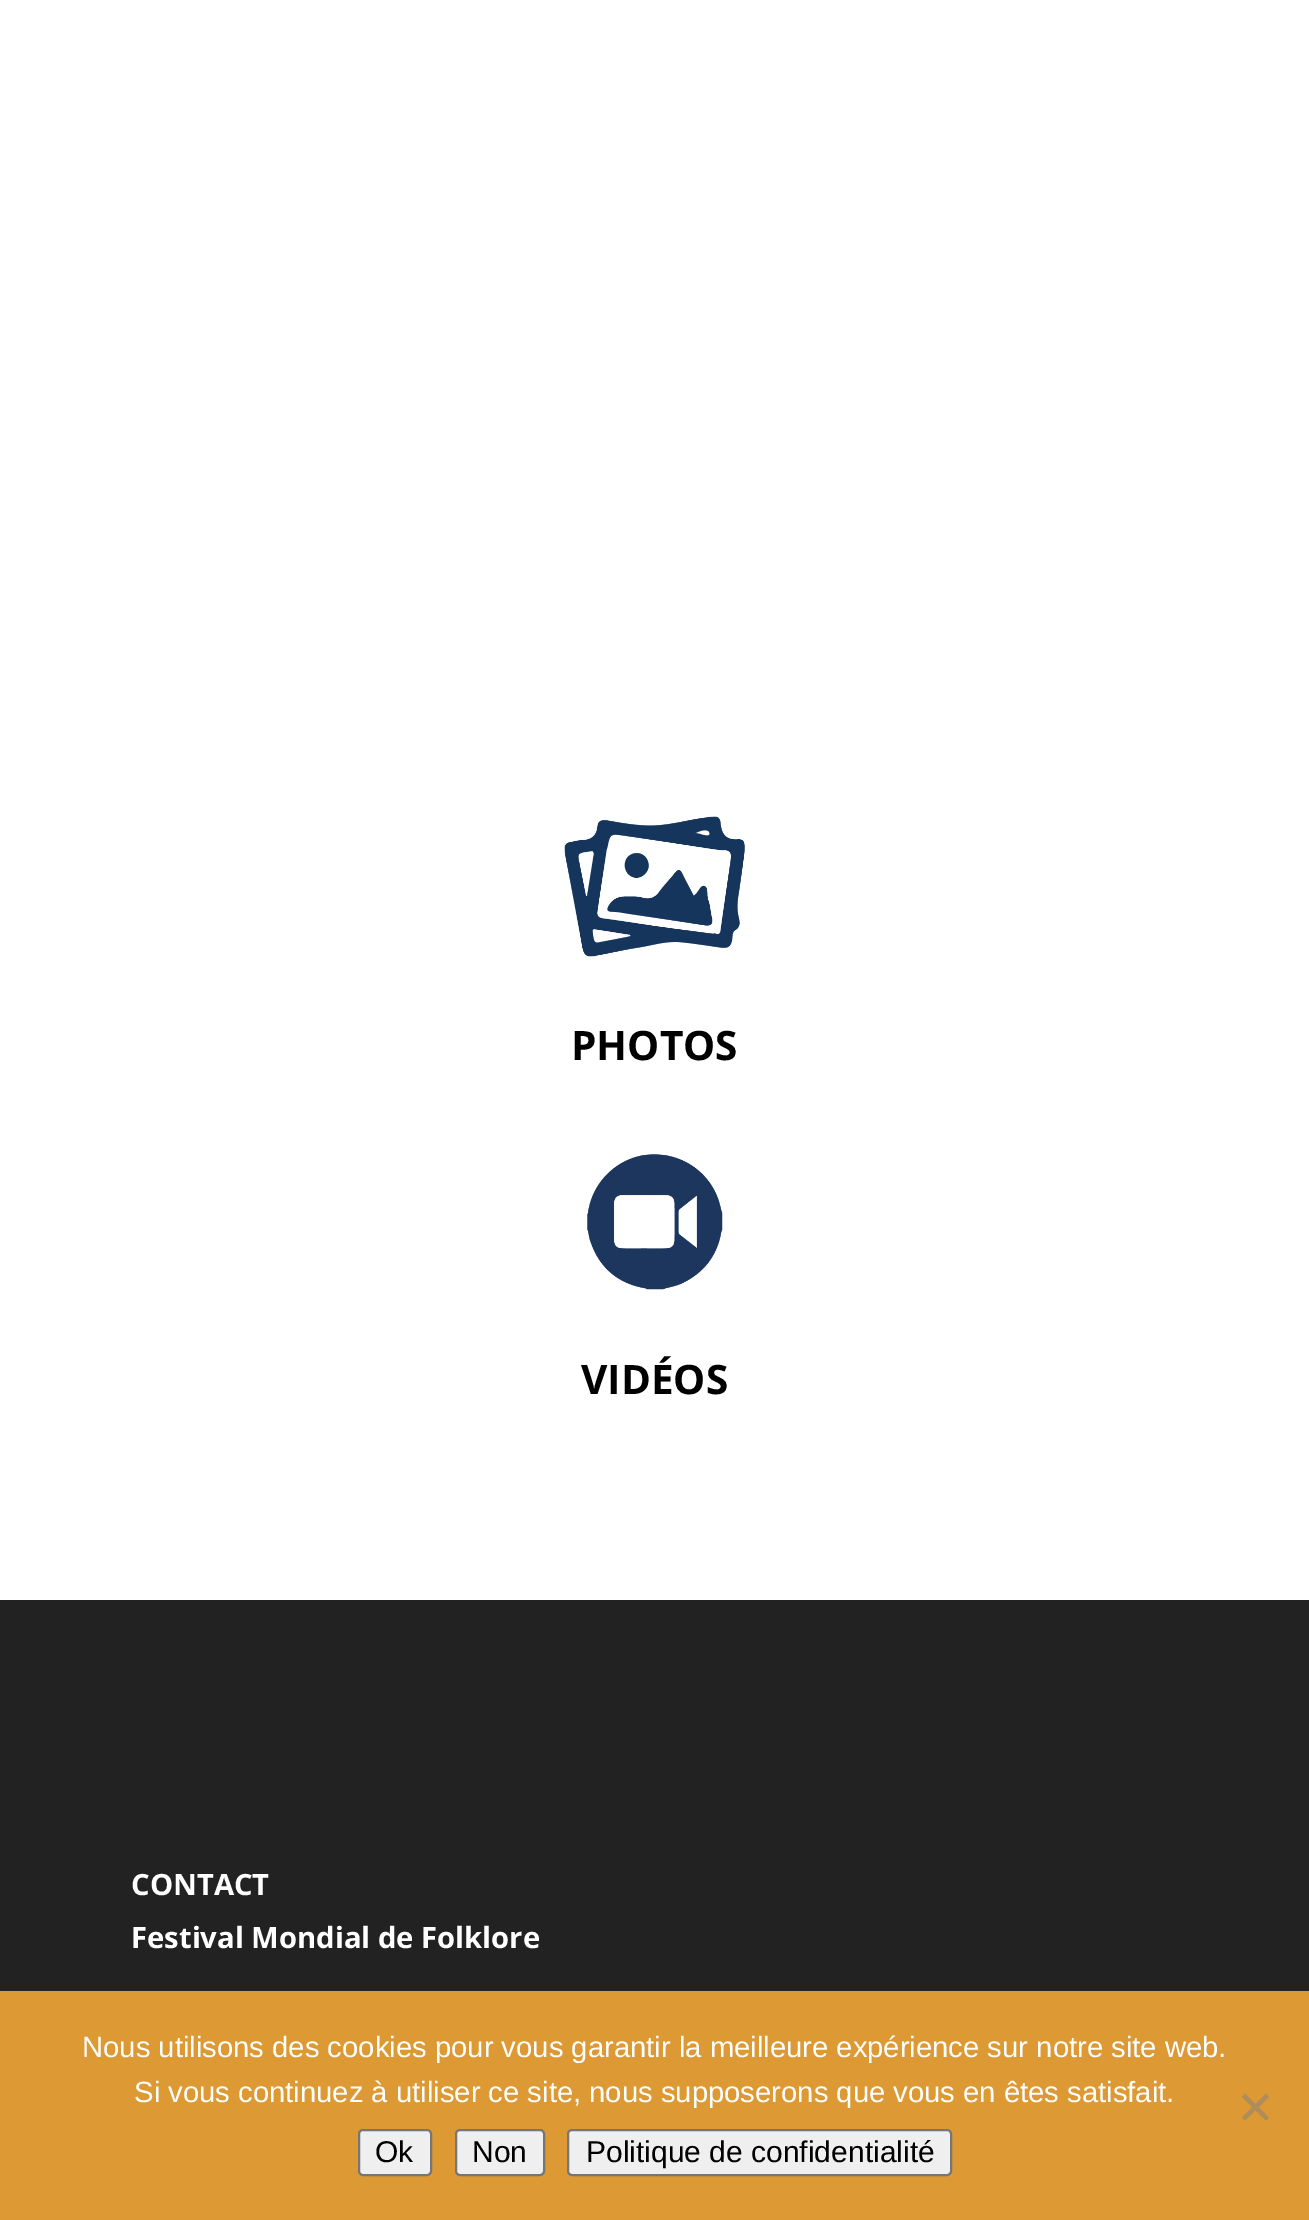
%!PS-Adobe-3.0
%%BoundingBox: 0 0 1309 2220
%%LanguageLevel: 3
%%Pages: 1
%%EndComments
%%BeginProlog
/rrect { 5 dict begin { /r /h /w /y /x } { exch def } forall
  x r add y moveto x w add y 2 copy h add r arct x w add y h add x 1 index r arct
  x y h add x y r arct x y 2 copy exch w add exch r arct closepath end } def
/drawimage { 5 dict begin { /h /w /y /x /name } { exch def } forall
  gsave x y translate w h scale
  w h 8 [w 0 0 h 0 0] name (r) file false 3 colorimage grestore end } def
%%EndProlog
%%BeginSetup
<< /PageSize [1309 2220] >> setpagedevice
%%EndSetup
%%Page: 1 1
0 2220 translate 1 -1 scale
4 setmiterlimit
0.133 setgray
0 0 1309 2220 rectfill
1 setgray
0 0 1309 1600 rectfill
(images/1.raw) 564 816 181 141 drawimage
(images/2.raw) 587 1154 136 136 drawimage
0.867 0.6 0.2 setrgbcolor
0 1991 1309 229 rectfill
0.686 0.553 0.353 setrgbcolor
newpath 1266 2093.5 moveto 1269 2097 lineto 1245 2120.5 lineto 1242 2117.5 lineto closepath fill
newpath 1242 2097 moveto 1245 2093.5 lineto 1269 2117.5 lineto 1266 2120.5 lineto closepath fill
0.937 setgray
359 2130 72 45 4 rrect gsave fill grestore
0.463 setgray
2 setlinewidth
stroke
0.937 setgray
456 2130 88 45 4 rrect gsave fill grestore
0.463 setgray
stroke
0.937 setgray
568 2130 383 45 4 rrect gsave fill grestore
0.463 setgray
stroke
/OpenSans-Bold [40.5 0 0 -40.5 0 0] selectfont
0 setgray
571 1060 moveto (PHOTOS) show
581 1394 moveto (VIDÉOS) show
/OpenSans-Bold [29.25 0 0 -29.25 0 0] selectfont
1 setgray
131 1895 moveto (CONTACT) show
131 1948 moveto (Festival Mondial de Folklore) show
/LiberationSans-Regular [29.25 0 0 -29.25 0 0] selectfont
82 2057 moveto (Nous utilisons des cookies pour vous garantir la meilleure expérience sur notre site web.) show
134 2102 moveto (Si vous continuez à utiliser ce site, nous supposerons que vous en êtes satisfait.) show
/LiberationSans-Regular [30 0 0 -30 0 0] selectfont
0 setgray
375 2162 moveto (Ok) show
472 2162 moveto (Non) show
586 2162 moveto (Politique de confidentialité) show
showpage
%%EOF
